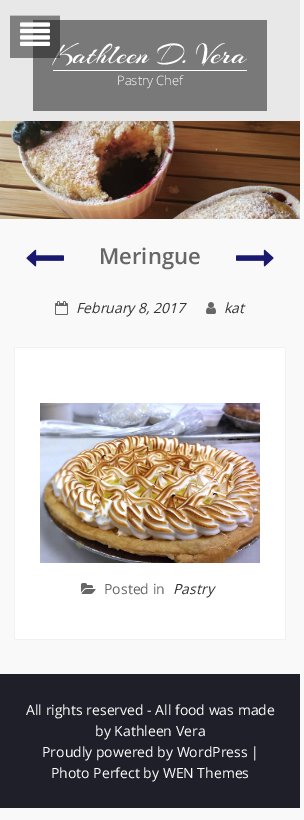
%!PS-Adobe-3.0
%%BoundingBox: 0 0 304 820
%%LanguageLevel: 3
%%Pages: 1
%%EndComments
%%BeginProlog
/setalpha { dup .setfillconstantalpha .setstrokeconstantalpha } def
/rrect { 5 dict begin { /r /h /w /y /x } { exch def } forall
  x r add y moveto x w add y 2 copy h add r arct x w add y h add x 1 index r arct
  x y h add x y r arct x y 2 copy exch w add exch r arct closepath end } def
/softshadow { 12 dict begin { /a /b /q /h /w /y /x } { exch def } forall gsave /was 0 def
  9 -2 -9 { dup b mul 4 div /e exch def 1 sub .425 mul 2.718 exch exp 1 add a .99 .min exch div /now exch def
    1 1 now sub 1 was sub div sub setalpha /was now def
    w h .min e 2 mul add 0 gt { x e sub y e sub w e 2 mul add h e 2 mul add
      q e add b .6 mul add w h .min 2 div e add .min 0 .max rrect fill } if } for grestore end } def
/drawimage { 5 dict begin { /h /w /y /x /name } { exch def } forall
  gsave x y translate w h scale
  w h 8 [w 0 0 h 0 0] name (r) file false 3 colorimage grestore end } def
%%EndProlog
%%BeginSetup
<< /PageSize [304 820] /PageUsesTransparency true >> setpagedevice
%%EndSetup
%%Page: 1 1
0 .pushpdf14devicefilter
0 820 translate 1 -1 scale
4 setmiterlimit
0.976 setgray
0 0 304 820 rectfill
0.91 setgray
0 0 300 121 rectfill
0.749 setgray
10 15 50 1 rectfill
0.475 setgray
33 20 234 91 rectfill
1 setgray
53 70 194 1 rectfill
(images/2.raw) 0 121 300 98 drawimage
(images/3.raw) 26 249 38 18 drawimage
(images/4.raw) 236 249 38 18 drawimage
(images/5.raw) 55 301 13 14 drawimage
(images/6.raw) 206 302 10 12 drawimage
0.867 setgray
15 348 270 291 0 0.5 1 softshadow
1 setgray
15 348 270 291 rectfill
(images/7.raw) 40 403 220 160 drawimage
(images/8.raw) 81 583 15 11 drawimage
0.122 0.122 0.161 setrgbcolor
0 674 300 134 rectfill
/Arizonia-Regular [30 0 0 -30 0 0] selectfont
1 setgray
53 63 moveto (Kathleen D. Vera) show
0.49 setalpha
0.075 0.071 0.071 setrgbcolor
10 16 50 42 rectfill
1 setalpha
(images/1.raw) 20 22 30 24 drawimage
/OpenSans-Light [13 0 0 -13 0 0] selectfont
1 setgray
117 85 moveto (Pastry Chef) show
/OpenSans-SemiBold [22 0 0 -22 0 0] selectfont
0.4 setgray
99 264 moveto (Meringue) show
/OpenSans-Italic [14 0 0 -14 0 0] selectfont
0.2 setgray
76 313 moveto (February 8, 2017) show
224 313 moveto (kat) show
/OpenSans-Regular [14 0 0 -14 0 0] selectfont
0.4 setgray
104 594 moveto (Posted in) show
/OpenSans-Italic [14 0 0 -14 0 0] selectfont
0.2 setgray
173 594 moveto (Pastry) show
/OpenSans-Regular [14 0 0 -14 0 0] selectfont
1 setgray
26 715 moveto (All rights reserved - All food was made) show
95 736 moveto (by Kathleen Vera) show
42 757 moveto (Proudly powered by WordPress |) show
51 778 moveto (Photo Perfect by WEN Themes) show
.poppdf14devicefilter showpage
%%EOF
